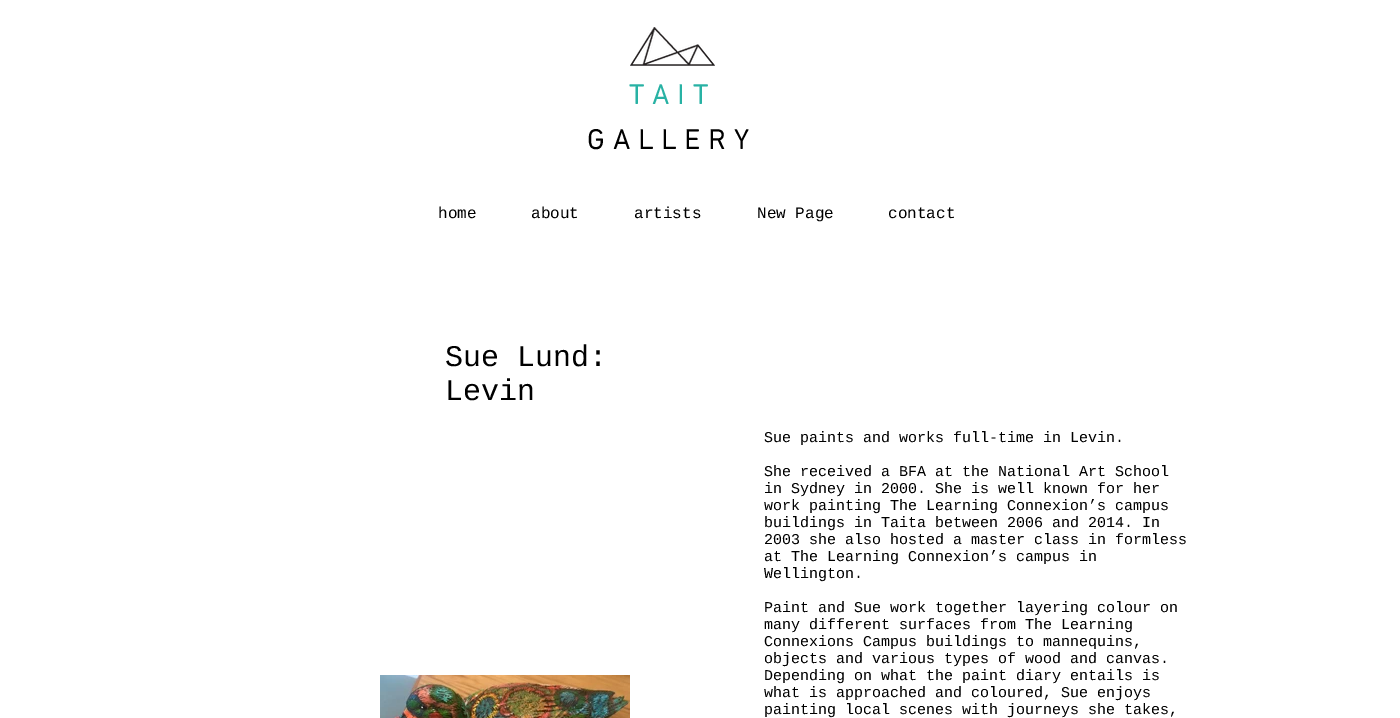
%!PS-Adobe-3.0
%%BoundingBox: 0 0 1400 718
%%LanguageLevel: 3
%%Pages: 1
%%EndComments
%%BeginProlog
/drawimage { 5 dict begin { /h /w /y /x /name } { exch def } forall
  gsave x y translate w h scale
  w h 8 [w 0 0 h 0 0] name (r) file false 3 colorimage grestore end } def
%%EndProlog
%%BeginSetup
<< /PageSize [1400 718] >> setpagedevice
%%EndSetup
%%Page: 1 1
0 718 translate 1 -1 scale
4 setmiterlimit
1 setgray
0 0 1400 718 rectfill
(images/1.raw) 630 27 85 39 drawimage
(images/2.raw) 380 675 250 43 drawimage
/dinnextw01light-Bold [28 0 0 -28 0 0] selectfont
0.157 0.698 0.643 setrgbcolor
629 104 moveto 8.5 0 (TAIT) ashow
0 setgray
587 149 moveto 8.5 0 (GALLERY) ashow
/LiberationMono-Regular [16 0 0 -16 0 0] selectfont
438 218 moveto (home) show
531 218 moveto (about) show
634 218 moveto (artists) show
757 218 moveto (New Page) show
888 218 moveto (contact) show
/LiberationMono-Regular [30 0 0 -30 0 0] selectfont
445 366 moveto (Sue Lund:) show
445 400 moveto (Levin) show
/LiberationMono-Regular [15 0 0 -15 0 0] selectfont
764 442 moveto (Sue paints and works full-time in Levin.) show
764 476 moveto (She received a BFA at the National Art School) show
764 493 moveto (in Sydney in 2000. She is well known for her) show
764 510 moveto (work painting The Learning Connexion’s campus) show
764 527 moveto (buildings in Taita between 2006 and 2014. In) show
764 544 moveto (2003 she also hosted a master class in formless) show
764 561 moveto (at The Learning Connexion’s campus in) show
764 578 moveto (Wellington.) show
764 612 moveto (Paint and Sue work together layering colour on) show
764 629 moveto (many different surfaces from The Learning) show
764 646 moveto (Connexions Campus buildings to mannequins,) show
764 663 moveto (objects and various types of wood and canvas.) show
764 680 moveto (Depending on what the paint diary entails is) show
764 697 moveto (what is approached and coloured, Sue enjoys) show
764 714 moveto (painting local scenes with journeys she takes,) show
showpage
%%EOF
